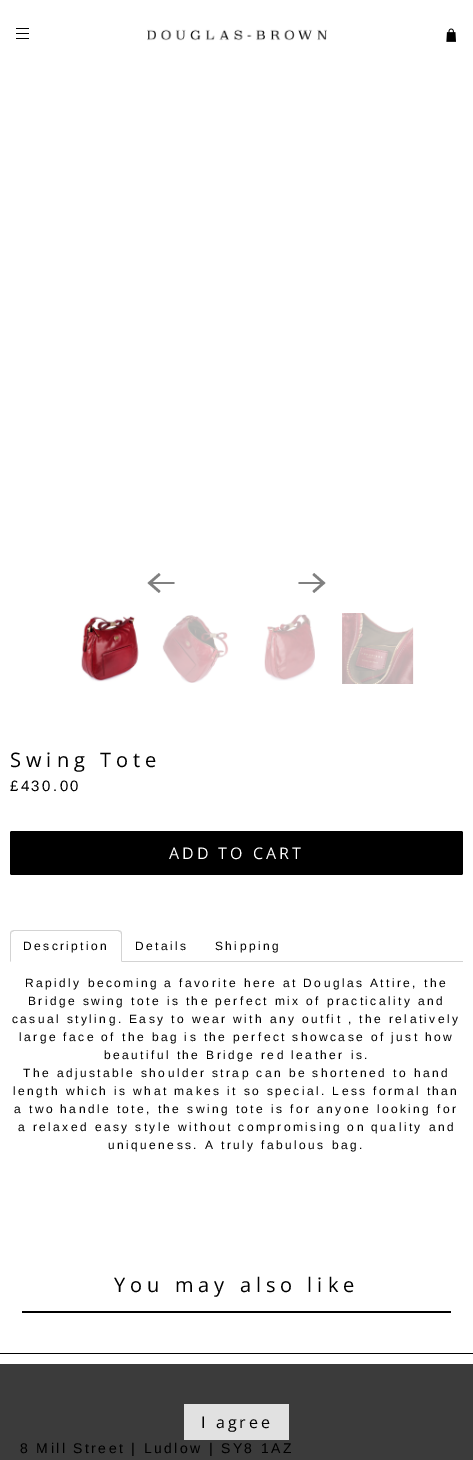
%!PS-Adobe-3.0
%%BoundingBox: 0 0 473 1460
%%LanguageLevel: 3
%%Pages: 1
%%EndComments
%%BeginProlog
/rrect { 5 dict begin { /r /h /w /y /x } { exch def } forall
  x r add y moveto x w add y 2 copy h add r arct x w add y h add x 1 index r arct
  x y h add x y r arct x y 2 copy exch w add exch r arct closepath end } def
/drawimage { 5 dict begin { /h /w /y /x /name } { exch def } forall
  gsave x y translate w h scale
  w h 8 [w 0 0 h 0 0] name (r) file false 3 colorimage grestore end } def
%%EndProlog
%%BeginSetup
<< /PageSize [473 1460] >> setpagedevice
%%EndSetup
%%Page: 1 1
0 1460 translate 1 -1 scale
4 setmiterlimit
1 setgray
0 0 473 1460 rectfill
0.231 setgray
0 1364 473 96 rectfill
0 setgray
16 28 13 1 rectfill
16 33 13 1 rectfill
16 38 13 1 rectfill
(images/1.raw) 147 29 180 12 drawimage
(images/2.raw) 446 28 10 14 drawimage
0.502 setgray
newpath 174.5 582 moveto 152.5 582 lineto 160.5 575 lineto 159 573 lineto 147.5 583 lineto 159 593 lineto 160.5 591 lineto 152.5 584 lineto 174.5 584 lineto closepath fill
newpath 298.5 584 moveto 320.5 584 lineto 312.5 591 lineto 314 593 lineto 325.5 583 lineto 314 573 lineto 312.5 575 lineto 320.5 582 lineto 298.5 582 lineto closepath fill
(images/3.raw) 81 616 58 66 drawimage
(images/4.raw) 162 615 67 68 drawimage
(images/5.raw) 264 614 51 67 drawimage
(images/6.raw) 342 613 72 71 drawimage
0 setgray
10 831 453 44 2 rrect fill
0.827 setgray
122 961 341 1 rectfill
newpath 14 930 moveto 11 931 lineto 12 932 lineto 14 931 lineto 118 931 lineto 120 932 lineto 121 931 lineto 118 930 lineto closepath fill
newpath 122 962 moveto 122 934 lineto 122 933 121.5 932 121 931 curveto 120 932 lineto 121 932 121 933 121 934 curveto 121 961 lineto closepath fill
newpath 10 962 moveto 11 961 lineto 11 934 lineto 11 933 11 932 12 932 curveto 11 931 lineto 10.5 932 10 933 10 934 curveto closepath fill
0 setgray
22 1311 429 2 rectfill
0.882 setgray
184 1404 105 36 rectfill
0 setgray
0 1353 473 1 rectfill
/OpenSans-Regular [20 0 0 -20 0 0] selectfont
10 767 moveto 5 0 (Swing Tote) ashow
/Arimo-Regular [15 0 0 -15 0 0] selectfont
10 791 moveto 2.4 0 (£430.00) ashow
/OpenSans-Regular [16 0 0 -16 0 0] selectfont
1 setgray
169 859 moveto 3 0 (ADD TO CART) ashow
/Arimo-Regular [12 0 0 -12 0 0] selectfont
0 setgray
23 950 moveto 2.4 0 (Description) ashow
135 950 moveto 2.4 0 (Details) ashow
215 950 moveto 2.4 0 (Shipping) ashow
25 987 moveto 2.4 0 (Rapidly becoming a favorite here at Douglas Attire, the) ashow
28 1005 moveto 2.4 0 (Bridge swing tote is the perfect mix of practicality and) ashow
12 1023 moveto 2.4 0 (casual styling. Easy to wear with any outfit , the relatively) ashow
19 1041 moveto 2.4 0 (large face of the bag is the perfect showcase of just how) ashow
104 1059 moveto 2.4 0 (beautiful the Bridge red leather is.) ashow
23 1077 moveto 2.4 0 (The adjustable shoulder strap can be shortened to hand) ashow
13 1095 moveto 2.4 0 (length which is what makes it so special. Less formal than) ashow
14 1113 moveto 2.4 0 (a two handle tote, the swing tote is for anyone looking for) ashow
18 1131 moveto 2.4 0 (a relaxed easy style without compromising on quality and) ashow
108 1149 moveto 2.4 0 (uniqueness. A truly fabulous bag.) ashow
/OpenSans-Regular [20 0 0 -20 0 0] selectfont
114 1292 moveto 5 0 (You may also like) ashow
/OpenSans-Regular [16 0 0 -16 0 0] selectfont
201 1428 moveto 3 0 (I agree) ashow
/Arimo-Regular [14 0 0 -14 0 0] selectfont
20 1453 moveto 2.4 0 (8 Mill Street | Ludlow | SY8 1AZ) ashow
showpage
%%EOF
